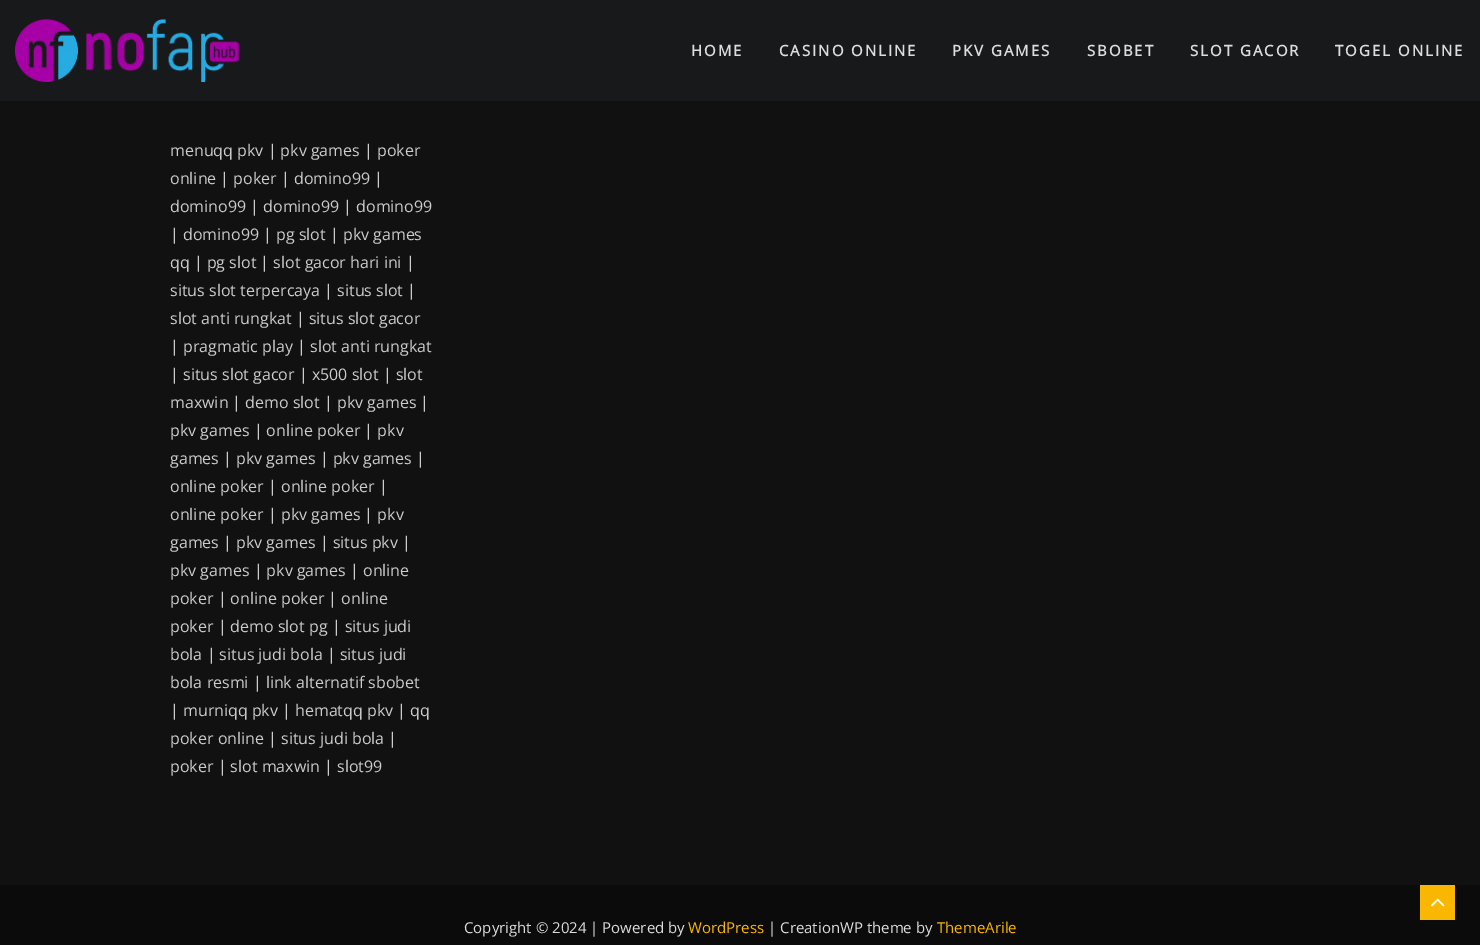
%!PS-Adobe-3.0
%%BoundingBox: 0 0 1480 945
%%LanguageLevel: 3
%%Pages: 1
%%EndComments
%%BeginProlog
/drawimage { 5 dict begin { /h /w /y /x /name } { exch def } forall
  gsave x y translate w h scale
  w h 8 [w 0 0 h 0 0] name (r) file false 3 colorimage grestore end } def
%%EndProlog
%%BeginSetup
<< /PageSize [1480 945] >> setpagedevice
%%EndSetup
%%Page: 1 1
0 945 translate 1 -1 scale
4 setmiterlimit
0.067 setgray
0 0 1480 945 rectfill
0.094 0.098 0.106 setrgbcolor
0 0 1480 101 rectfill
(images/1.raw) 15 19 224 63 drawimage
0.043 setgray
0 885 1480 60 rectfill
0.98 0.718 0.008 setrgbcolor
1420 885 35 35 rectfill
(images/2.raw) 1431 898 14 9 drawimage
/OpenSans-Bold [15 0 0 -15 0 0] selectfont
0.867 setgray
691 56 moveto 2 0 (HOME) ashow
779 56 moveto 2 0 (CASINO ONLINE) ashow
952 56 moveto 2 0 (PKV GAMES) ashow
1087 56 moveto 2 0 (SBOBET) ashow
1190 56 moveto 2 0 (SLOT GACOR) ashow
1335 56 moveto 2 0 (TOGEL ONLINE) ashow
/OpenSans-Regular [16 0 0 -16 0 0] selectfont
0.8 setgray
170 156 moveto (menuqq pkv | pkv games | poker) show
170 184 moveto (online | poker | domino99 |) show
170 212 moveto (domino99 | domino99 | domino99) show
170 240 moveto (| domino99 | pg slot | pkv games) show
170 268 moveto (qq | pg slot | slot gacor hari ini |) show
170 296 moveto (situs slot terpercaya | situs slot |) show
170 324 moveto (slot anti rungkat | situs slot gacor) show
170 352 moveto (| pragmatic play | slot anti rungkat) show
170 380 moveto (| situs slot gacor | x500 slot | slot) show
170 408 moveto (maxwin | demo slot | pkv games |) show
170 436 moveto (pkv games | online poker | pkv) show
170 464 moveto (games | pkv games | pkv games |) show
170 492 moveto (online poker | online poker |) show
170 520 moveto (online poker | pkv games | pkv) show
170 548 moveto (games | pkv games | situs pkv |) show
170 576 moveto (pkv games | pkv games | online) show
170 604 moveto (poker | online poker | online) show
170 632 moveto (poker | demo slot pg | situs judi) show
170 660 moveto (bola | situs judi bola | situs judi) show
170 688 moveto (bola resmi | link alternatif sbobet) show
170 716 moveto (| murniqq pkv | hematqq pkv | qq) show
170 744 moveto (poker online | situs judi bola |) show
170 772 moveto (poker | slot maxwin | slot99) show
/OpenSans-Regular [15 0 0 -15 0 0] selectfont
0.867 setgray
464 933 moveto (Copyright © 2024 | Powered by) show
0.98 0.718 0.008 setrgbcolor
688 933 moveto (WordPress) show
0.867 setgray
768 933 moveto (| CreationWP theme by) show
0.98 0.718 0.008 setrgbcolor
937 933 moveto (ThemeArile) show
showpage
%%EOF
